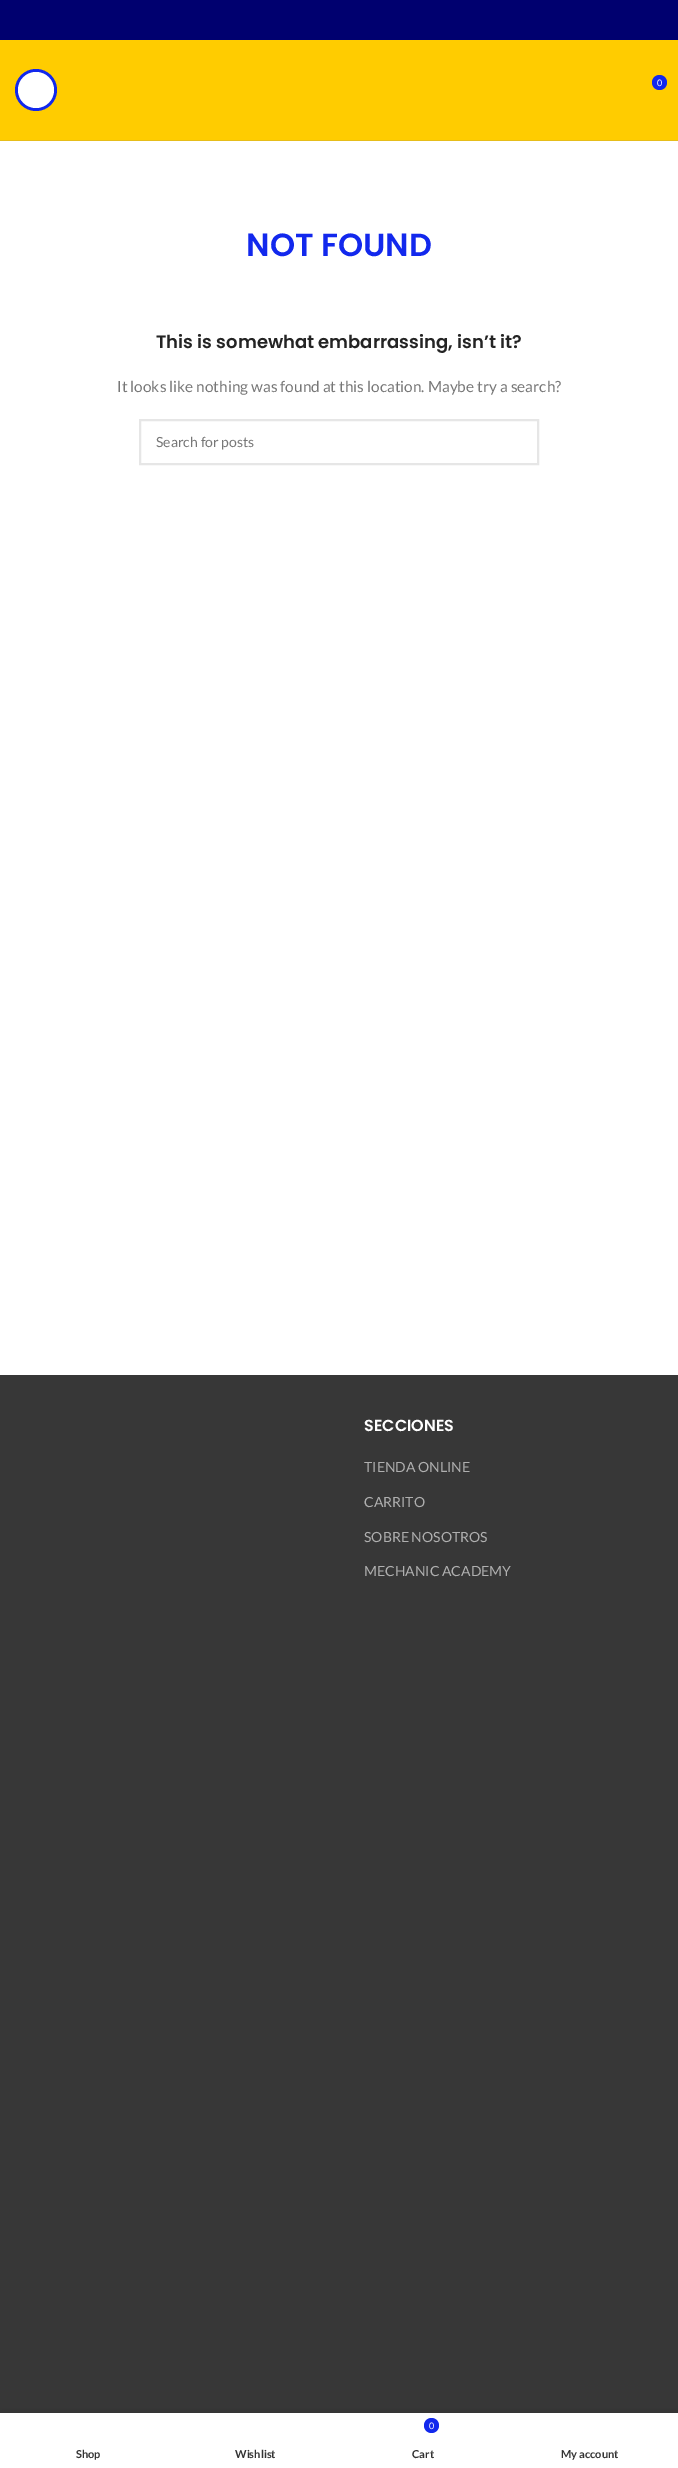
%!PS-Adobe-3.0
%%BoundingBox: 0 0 678 2468
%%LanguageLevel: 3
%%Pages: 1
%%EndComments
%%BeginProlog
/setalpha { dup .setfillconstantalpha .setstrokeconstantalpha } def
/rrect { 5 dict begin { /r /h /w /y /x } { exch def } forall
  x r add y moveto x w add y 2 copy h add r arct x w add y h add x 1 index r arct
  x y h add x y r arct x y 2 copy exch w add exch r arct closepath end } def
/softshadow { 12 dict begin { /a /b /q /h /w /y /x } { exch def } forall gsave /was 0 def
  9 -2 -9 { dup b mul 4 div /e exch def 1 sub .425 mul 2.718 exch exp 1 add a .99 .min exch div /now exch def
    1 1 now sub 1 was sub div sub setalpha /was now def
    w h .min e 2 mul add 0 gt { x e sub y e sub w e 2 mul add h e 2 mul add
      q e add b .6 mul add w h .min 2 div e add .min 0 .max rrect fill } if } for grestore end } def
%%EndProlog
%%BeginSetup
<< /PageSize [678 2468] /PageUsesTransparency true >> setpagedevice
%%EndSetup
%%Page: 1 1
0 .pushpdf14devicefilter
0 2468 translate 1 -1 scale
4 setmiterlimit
1 setgray
0 0 678 2468 rectfill
0 0 0.435 setrgbcolor
0 0 678 40 rectfill
1 0.8 0 setrgbcolor
0 40 678 100 rectfill
0.902 0.741 0.102 setrgbcolor
0 140 678 1 rectfill
0.071 0.157 0.929 setrgbcolor
newpath 36 90 21 0 360 arc closepath fill
1 setgray
newpath 36 90 18 0 360 arc closepath fill
0.071 0.157 0.929 setrgbcolor
newpath 659.5 82.5 7.5 0 360 arc closepath fill
0.902 setgray
2 setlinewidth
140 420 398 44 rectstroke
0.216 setgray
0 1375 678 1038 rectfill
0 setgray
0 2413 678 55 0 4.5 0.12 softshadow
1 setgray
0 2413 678 55 rectfill
0.071 0.157 0.929 setrgbcolor
newpath 431.5 2425.5 7.5 0 360 arc closepath fill
/Lato-Regular [9 0 0 -9 0 0] selectfont
1 setgray
657 86 moveto (0) show
/Poppins-SemiBold [32 0 0 -32 0 0] selectfont
0.071 0.157 0.929 setrgbcolor
246 256 moveto (NOT FOUND) show
/Poppins-SemiBold [18 0 0 -18 0 0] selectfont
0.141 setgray
156 348 moveto (This is somewhat embarrassing, isn’t it?) show
/Lato-Regular [15.4 0 0 -15.4 0 0] selectfont
0.467 setgray
117 392 moveto (It looks like nothing was found at this location. Maybe try a search?) show
/Lato-Regular [14 0 0 -14 0 0] selectfont
156 447 moveto (Search for posts) show
/Poppins-SemiBold [16 0 0 -16 0 0] selectfont
1 setgray
364 1431 moveto (SECCIONES) show
/Lato-Regular [14 0 0 -14 0 0] selectfont
0.686 setgray
364 1472 moveto (TIENDA ONLINE) show
364 1507 moveto (CARRITO) show
364 1542 moveto (SOBRE NOSOTROS) show
364 1576 moveto (MECHANIC ACADEMY) show
/Lato-Bold [11 0 0 -11 0 0] selectfont
0.2 setgray
76 2458 moveto (Shop) show
235 2458 moveto (Wishlist) show
/Lato-Regular [9 0 0 -9 0 0] selectfont
1 setgray
429 2429 moveto (0) show
/Lato-Bold [11 0 0 -11 0 0] selectfont
0.2 setgray
412 2458 moveto (Cart) show
561 2458 moveto (My account) show
.poppdf14devicefilter showpage
%%EOF
